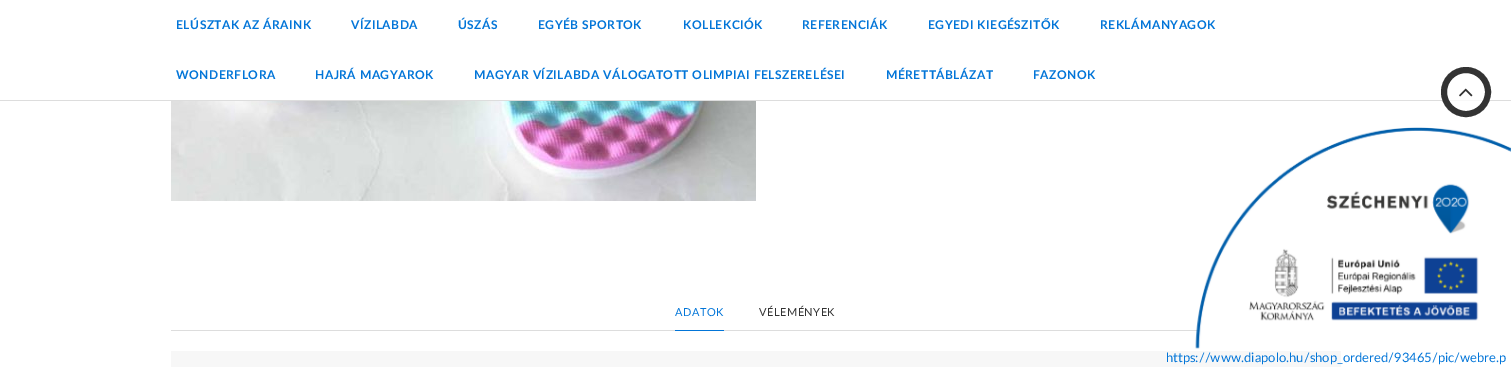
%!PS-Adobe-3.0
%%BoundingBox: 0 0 1511 367
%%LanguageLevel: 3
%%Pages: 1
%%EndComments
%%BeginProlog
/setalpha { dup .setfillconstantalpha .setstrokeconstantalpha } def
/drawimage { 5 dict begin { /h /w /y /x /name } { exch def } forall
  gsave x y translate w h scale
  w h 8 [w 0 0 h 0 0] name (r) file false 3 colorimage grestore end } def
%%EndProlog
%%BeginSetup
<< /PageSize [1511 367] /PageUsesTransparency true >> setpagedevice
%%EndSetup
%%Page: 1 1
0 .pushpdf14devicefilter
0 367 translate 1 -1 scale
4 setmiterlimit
1 setgray
0 0 1511 367 rectfill
0.867 setgray
0 100 1511 1 rectfill
(images/1.raw) 171 101 585 100 drawimage
171 330 1028 1 rectfill
0.008 0.459 0.847 setrgbcolor
675 330 49 1 rectfill
0.969 setgray
171 351 1170 16 rectfill
0.8 setalpha
1 setgray
newpath 1466 92 22 0 360 arc closepath fill
1 setalpha
0.2 setgray
6 setlinewidth
newpath 1466 92 22 0 360 arc closepath stroke
(images/2.raw) 1459 88 14 9 drawimage
(images/3.raw) 1195 127 316 222 drawimage
/Lato-Bold [12 0 0 -12 0 0] selectfont
0.008 0.459 0.847 setrgbcolor
176 29 moveto 0.5 0 (ELÚSZTAK AZ ÁRAINK) ashow
351 29 moveto 0.5 0 (VÍZILABDA) ashow
458 29 moveto 0.5 0 (ÚSZÁS) ashow
538 29 moveto 0.5 0 (EGYÉB SPORTOK) ashow
683 29 moveto 0.5 0 (KOLLEKCIÓK) ashow
802 29 moveto 0.5 0 (REFERENCIÁK) ashow
928 29 moveto 0.5 0 (EGYEDI KIEGÉSZITŐK) ashow
1100 29 moveto 0.5 0 (REKLÁMANYAGOK) ashow
176 79 moveto 0.5 0 (WONDERFLORA) ashow
315 79 moveto 0.5 0 (HAJRÁ MAGYAROK) ashow
474 79 moveto 0.5 0 (MAGYAR VÍZILABDA VÁLOGATOTT OLIMPIAI FELSZERELÉSEI) ashow
886 79 moveto 0.5 0 (MÉRETTÁBLÁZAT) ashow
1033 79 moveto 0.5 0 (FAZONOK) ashow
/Lato-Regular [11 0 0 -11 0 0] selectfont
675 316 moveto 0.5 0 (ADATOK) ashow
0.2 setgray
759 316 moveto 0.5 0 (VÉLEMÉNYEK) ashow
/Lato-Regular [13 0 0 -13 0 0] selectfont
0.008 0.459 0.847 setrgbcolor
1166 362 moveto (https://www.diapolo.hu/shop_ordered/93465/pic/webre.p) show
.poppdf14devicefilter showpage
%%EOF
